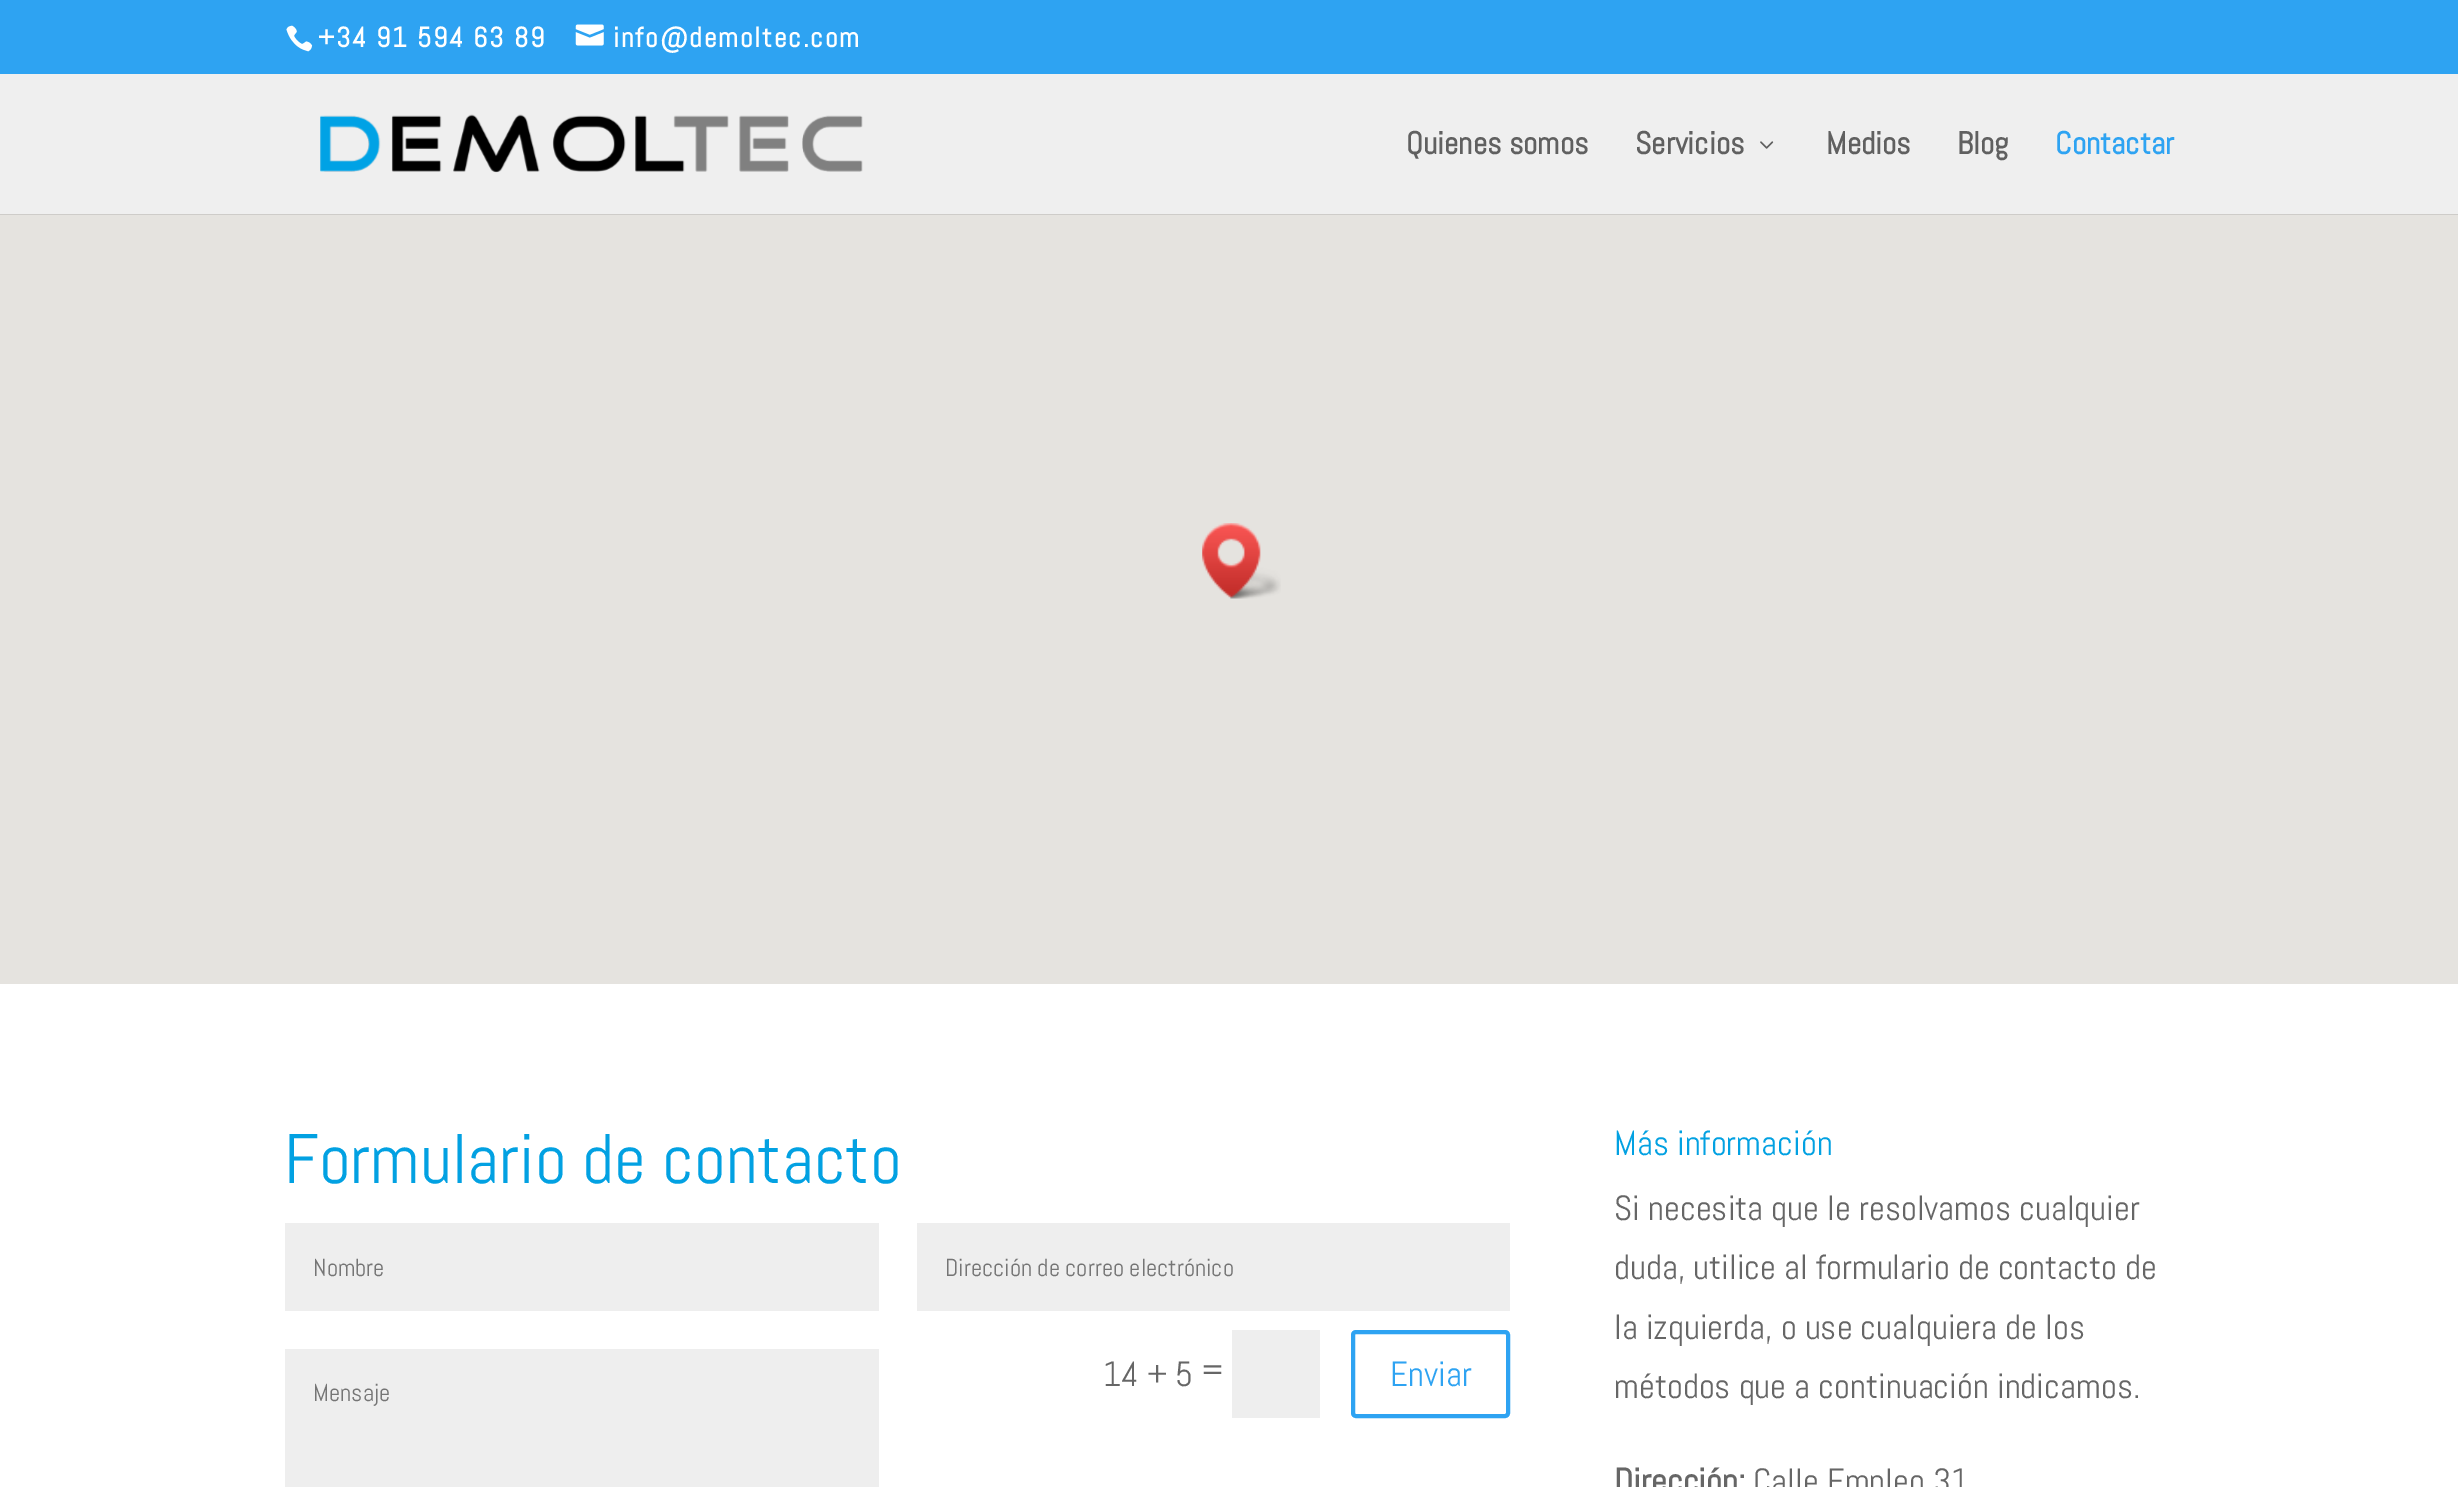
%!PS-Adobe-3.0
%%BoundingBox: 0 0 2458 1487
%%LanguageLevel: 3
%%Pages: 1
%%EndComments
%%BeginProlog
/rrect { 5 dict begin { /r /h /w /y /x } { exch def } forall
  x r add y moveto x w add y 2 copy h add r arct x w add y h add x 1 index r arct
  x y h add x y r arct x y 2 copy exch w add exch r arct closepath end } def
/drawimage { 5 dict begin { /h /w /y /x /name } { exch def } forall
  gsave x y translate w h scale
  w h 8 [w 0 0 h 0 0] name (r) file false 3 colorimage grestore end } def
%%EndProlog
%%BeginSetup
<< /PageSize [2458 1487] >> setpagedevice
%%EndSetup
%%Page: 1 1
0 1487 translate 1 -1 scale
4 setmiterlimit
1 setgray
0 0 2458 1487 rectfill
0.18 0.639 0.949 setrgbcolor
0 0 2458 74 rectfill
(images/1.raw) 286 25 27 27 drawimage
(images/2.raw) 575 24 29 22 drawimage
0.808 0.8 0.788 setrgbcolor
newpath 0 214 moveto 0 215 lineto 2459 215 lineto 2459 75 lineto 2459 214 lineto closepath fill
0.937 setgray
0 74 2458 140 rectfill
(images/3.raw) 320 114 543 59 drawimage
(images/4.raw) 1760 141 14 8 drawimage
0.898 0.89 0.875 setrgbcolor
0 215 2458 769 rectfill
(images/5.raw) 1202 523 79 76 drawimage
0.933 setgray
285 1223 594 88 rectfill
917 1223 593 88 rectfill
1232 1330 88 88 rectfill
0.18 0.639 0.949 setrgbcolor
4 setlinewidth
1353 1332 155 84 3 rrect stroke
0.933 setgray
285 1349 594 138 rectfill
/Abel-Bold [28 0 0 -28 0 0] selectfont
1 setgray
318 47 moveto 1.75 0 (+34 91 594 63 89) ashow
613 47 moveto 1.75 0 (info@demoltec.com) ashow
/Abel-Bold [31.5 0 0 -31.5 0 0] selectfont
0.376 setgray
1406 154 moveto (Quienes somos) show
1635 154 moveto (Servicios) show
1826 154 moveto (Medios) show
1957 154 moveto (Blog) show
0.18 0.639 0.949 setrgbcolor
2055 154 moveto (Contactar) show
/Abel-Regular [70 0 0 -70 0 0] selectfont
0.008 0.631 0.886 setrgbcolor
284 1183 moveto (Formulario de contacto) show
/Abel-Regular [24.5 0 0 -24.5 0 0] selectfont
0.459 setgray
313 1276 moveto (Nombre) show
945 1276 moveto (Dirección de correo electrónico) show
/Abel-Regular [35 0 0 -35 0 0] selectfont
0.4 setgray
1103 1386 moveto (14 + 5) show
1201 1382 moveto (=) show
0.18 0.639 0.949 setrgbcolor
1390 1386 moveto (Enviar) show
/Abel-Regular [24.5 0 0 -24.5 0 0] selectfont
0.459 setgray
313 1401 moveto (Mensaje) show
/Abel-Regular [35 0 0 -35 0 0] selectfont
0.008 0.631 0.886 setrgbcolor
1614 1155 moveto (Más información) show
0.4 setgray
1614 1220 moveto (Si necesita que le resolvamos cualquier) show
1614 1279 moveto (duda, utilice al formulario de contacto de) show
1614 1339 moveto (la izquierda, o use cualquiera de los) show
1614 1398 moveto (métodos que a continuación indicamos.) show
/Abel-Bold [35 0 0 -35 0 0] selectfont
1614 1493 moveto (Dirección:) show
/Abel-Regular [35 0 0 -35 0 0] selectfont
1753 1493 moveto (Calle Empleo 31) show
showpage
%%EOF
